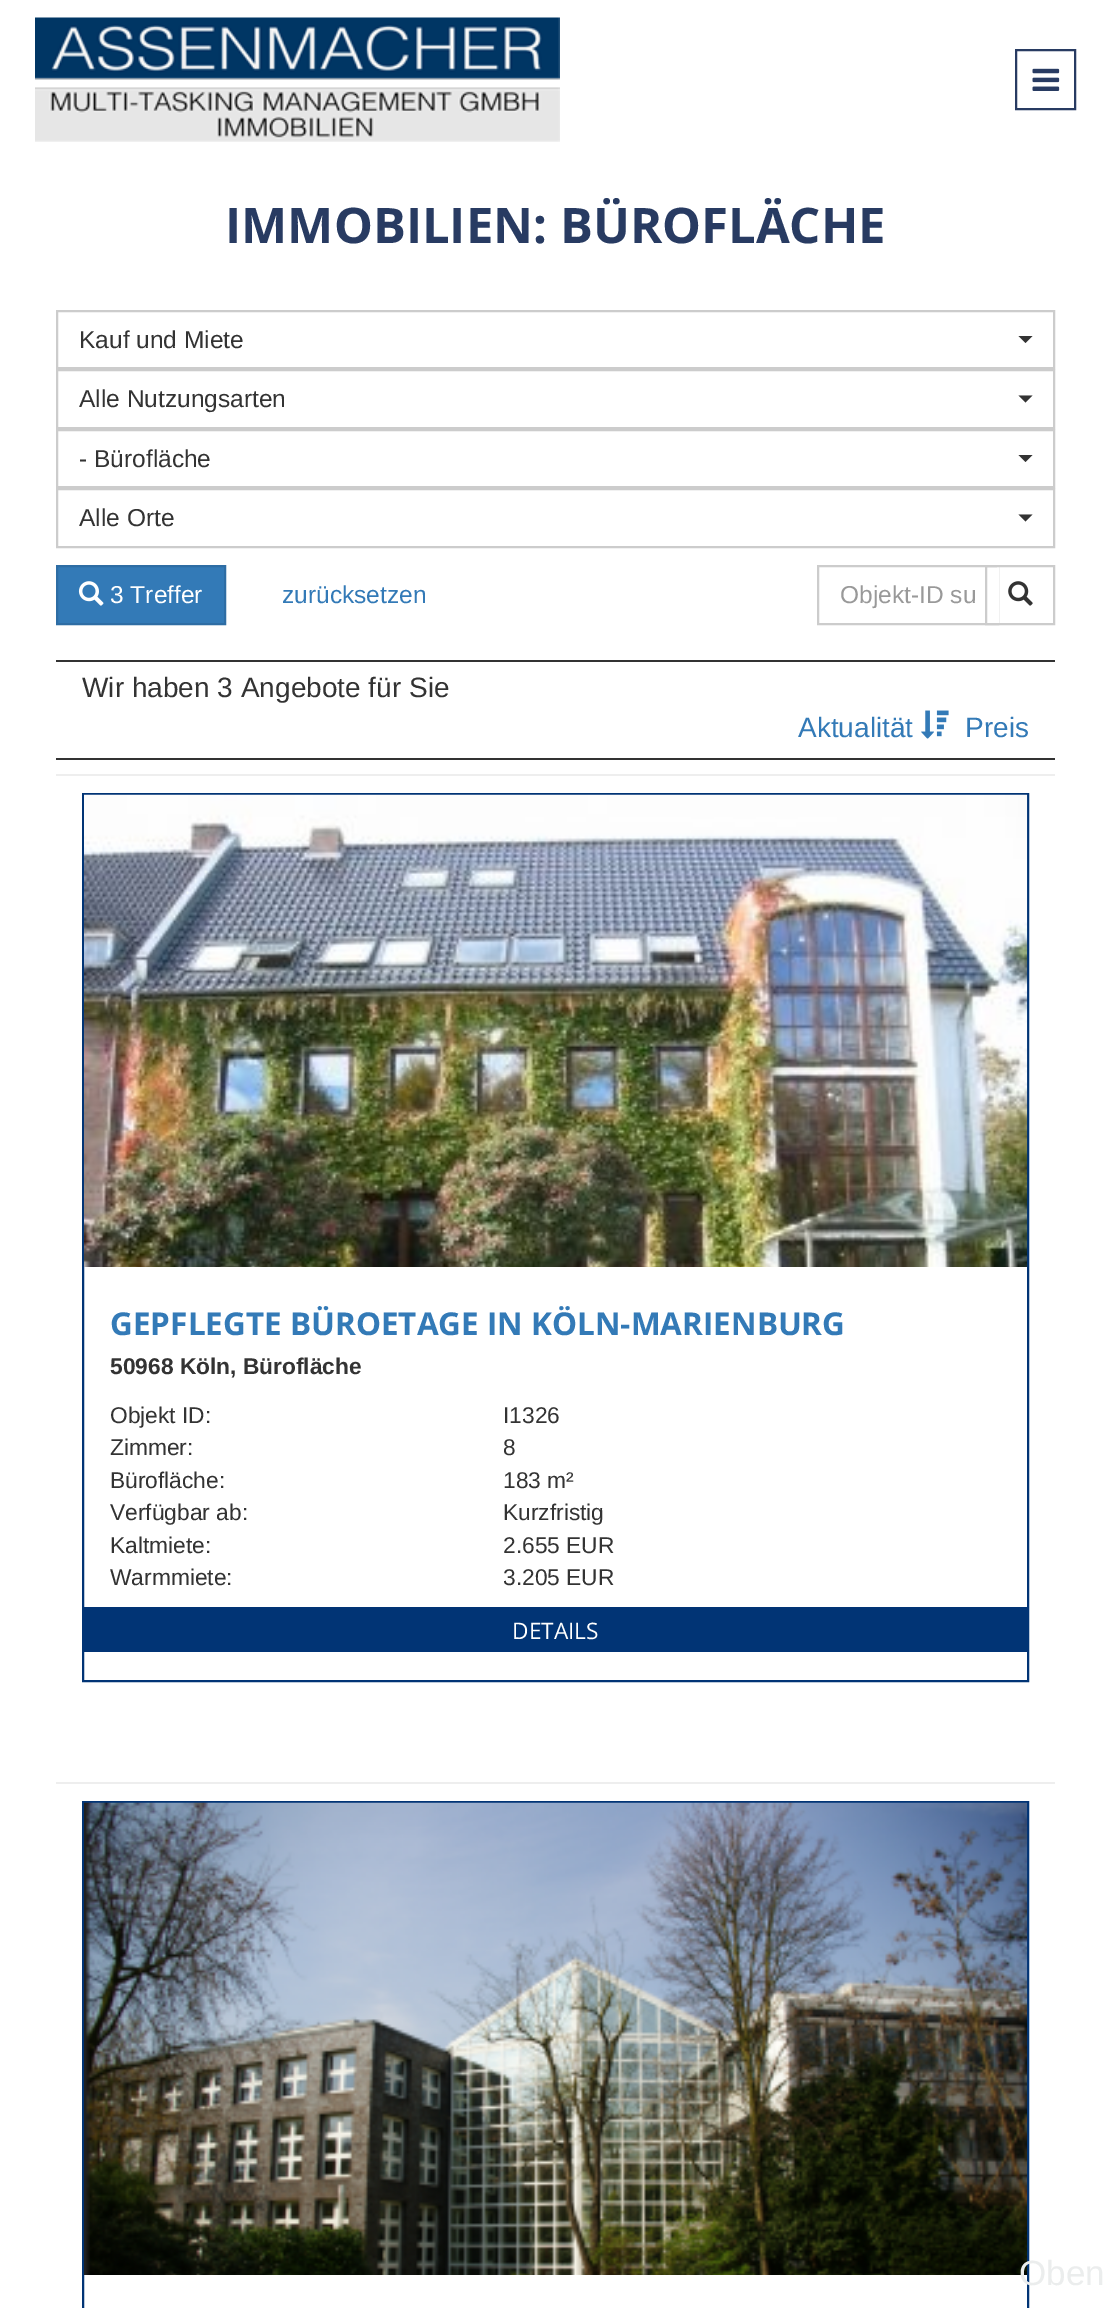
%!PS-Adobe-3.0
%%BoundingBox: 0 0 1110 2308
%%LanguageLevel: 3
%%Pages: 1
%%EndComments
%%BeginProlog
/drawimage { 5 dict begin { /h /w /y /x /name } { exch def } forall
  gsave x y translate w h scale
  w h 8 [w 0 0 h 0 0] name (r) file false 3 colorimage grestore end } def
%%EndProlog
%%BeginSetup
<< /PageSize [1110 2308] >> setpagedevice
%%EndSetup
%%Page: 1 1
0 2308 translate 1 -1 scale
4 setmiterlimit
1 setgray
0 0 1110 2308 rectfill
(images/1.raw) 35 17 525 125 drawimage
0.157 0.231 0.384 setrgbcolor
2 setlinewidth
1016 50 59 59 rectstroke
(images/2.raw) 1032 68 28 23 drawimage
0.8 setgray
57 311 997 57 rectstroke
0.2 setgray
newpath 1018.5 336 moveto 1032.5 336 lineto 1025.5 343 lineto closepath fill
0.8 setgray
57 370 997 58 rectstroke
0.2 setgray
newpath 1018.5 395.5 moveto 1032.5 395.5 lineto 1025.5 402.5 lineto closepath fill
0.8 setgray
57 430 997 57 rectstroke
0.2 setgray
newpath 1018.5 455 moveto 1032.5 455 lineto 1025.5 462 lineto closepath fill
0.8 setgray
57 489 997 58 rectstroke
0.2 setgray
newpath 1018.5 514.5 moveto 1032.5 514.5 lineto 1025.5 521.5 lineto closepath fill
0.2 0.478 0.718 setrgbcolor
newpath 57 566 moveto 225 566 lineto 225 624 lineto 57 624 lineto closepath gsave fill grestore
0.18 0.427 0.643 setrgbcolor
stroke
(images/3.raw) 78 581 26 25 drawimage
0.8 setgray
818 566 180 58 rectstroke
1 setgray
997 567 2 56 rectfill
0.8 setgray
986 566 68 58 rectstroke
(images/4.raw) 1008 581 25 25 drawimage
0.2 setgray
56 660 999 2 rectfill
56 758 999 2 rectfill
(images/5.raw) 921 710 28 29 drawimage
0.933 setgray
56 774 999 2 rectfill
0.004 0.204 0.459 setrgbcolor
83 794 945 887 rectstroke
(images/6.raw) 84 794 944 473 drawimage
84 1607 943 45 rectfill
0.933 setgray
56 1782 999 2 rectfill
0.004 0.204 0.459 setrgbcolor
83 1802 945 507 rectstroke
(images/7.raw) 84 1802 944 473 drawimage
/OpenSans-Bold [49 0 0 -49 0 0] selectfont
0.157 0.231 0.384 setrgbcolor
225 243 moveto (IMMOBILIEN: BÜROFLÄCHE) show
/LiberationSans-Regular [24.5 0 0 -24.5 0 0] selectfont
0.2 setgray
79 348 moveto (Kauf und Miete) show
79 407 moveto (Alle Nutzungsarten) show
79 467 moveto (- Bürofläche) show
79 526 moveto (Alle Orte) show
1 setgray
110 603 moveto (3 Treffer) show
0.2 0.478 0.718 setrgbcolor
282 603 moveto (zurücksetzen) show
0.6 setgray
840 603 moveto (Objekt-ID su) show
/LiberationSans-Regular [28 0 0 -28 0 0] selectfont
0.2 setgray
82 697 moveto (Wir haben 3 Angebote für Sie) show
0.2 0.478 0.718 setrgbcolor
798 737 moveto (Aktualität) show
965 737 moveto (Preis) show
/OpenSans-Bold [31.5 0 0 -31.5 0 0] selectfont
110 1335 moveto (GEPFLEGTE BÜROETAGE IN KÖLN-MARIENBURG) show
/LiberationSans-Bold [22.75 0 0 -22.75 0 0] selectfont
0.2 setgray
110 1374 moveto (50968 Köln, Bürofläche) show
/LiberationSans-Regular [22.75 0 0 -22.75 0 0] selectfont
110 1423 moveto (Objekt ID:) show
503 1423 moveto (I1326) show
110 1455 moveto (Zimmer:) show
503 1455 moveto (8) show
110 1488 moveto (Bürofläche:) show
503 1488 moveto (183 m²) show
110 1520 moveto (Verfügbar ab:) show
503 1520 moveto (Kurzfristig) show
110 1553 moveto (Kaltmiete:) show
503 1553 moveto (2.655 EUR) show
110 1585 moveto (Warmmiete:) show
503 1585 moveto (3.205 EUR) show
/OpenSans-Regular [22.75 0 0 -22.75 0 0] selectfont
1 setgray
512 1639 moveto (DETAILS) show
/LiberationSans-Regular [35 0 0 -35 0 0] selectfont
0.922 0.929 0.929 setrgbcolor
1019 2285 moveto (Oben) show
showpage
%%EOF
